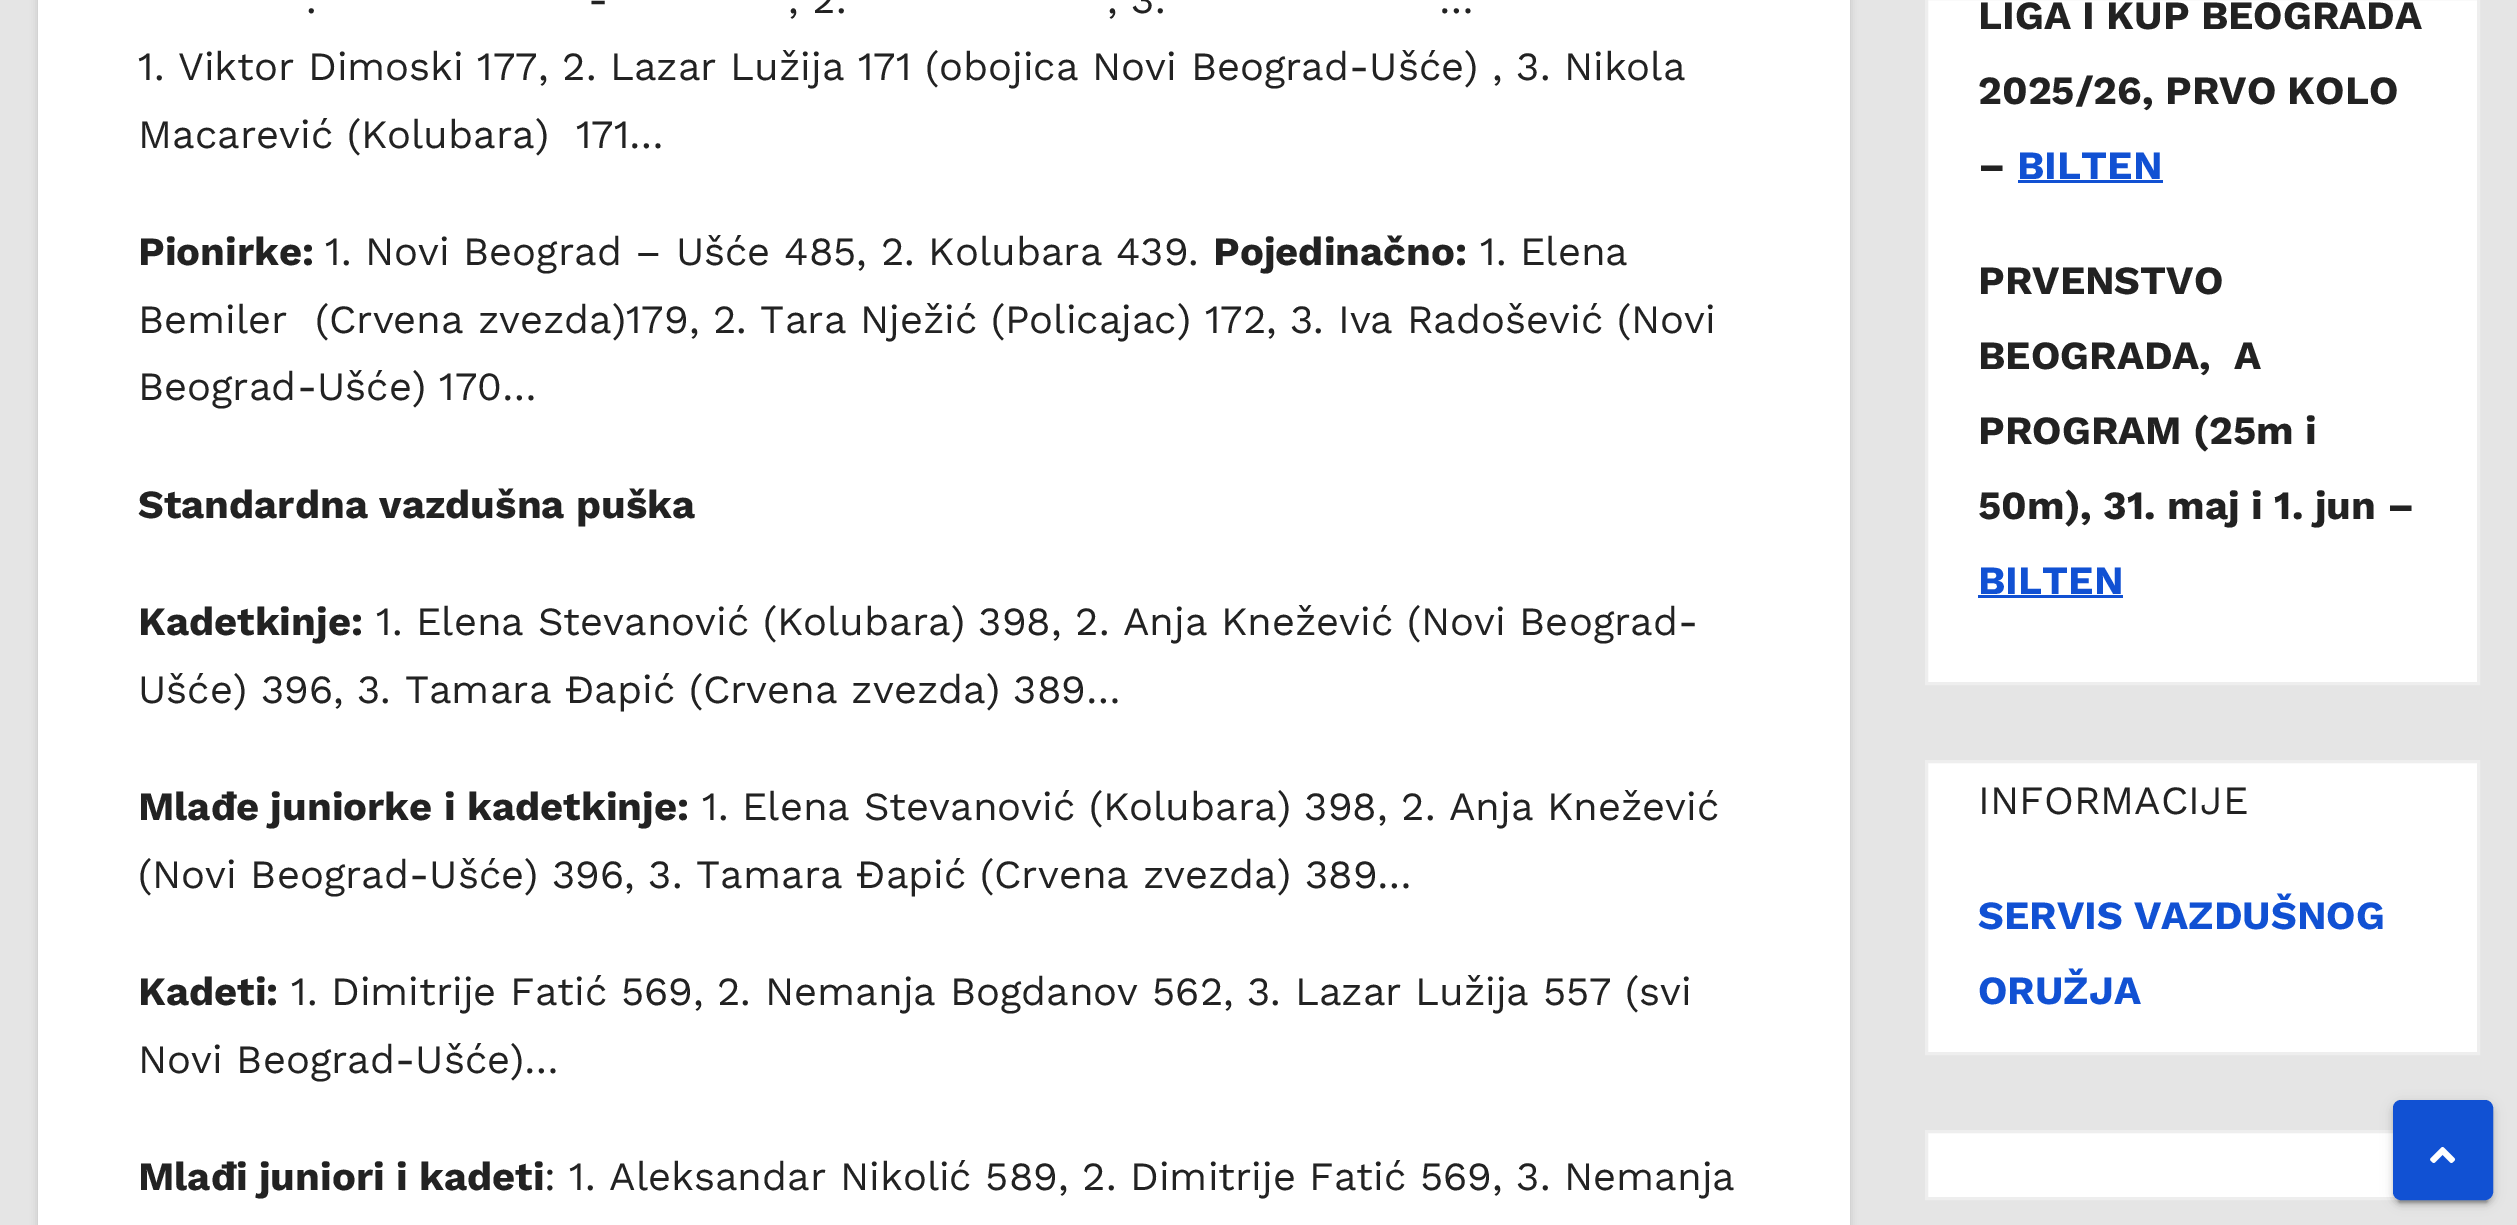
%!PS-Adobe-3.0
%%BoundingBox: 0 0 2517 1225
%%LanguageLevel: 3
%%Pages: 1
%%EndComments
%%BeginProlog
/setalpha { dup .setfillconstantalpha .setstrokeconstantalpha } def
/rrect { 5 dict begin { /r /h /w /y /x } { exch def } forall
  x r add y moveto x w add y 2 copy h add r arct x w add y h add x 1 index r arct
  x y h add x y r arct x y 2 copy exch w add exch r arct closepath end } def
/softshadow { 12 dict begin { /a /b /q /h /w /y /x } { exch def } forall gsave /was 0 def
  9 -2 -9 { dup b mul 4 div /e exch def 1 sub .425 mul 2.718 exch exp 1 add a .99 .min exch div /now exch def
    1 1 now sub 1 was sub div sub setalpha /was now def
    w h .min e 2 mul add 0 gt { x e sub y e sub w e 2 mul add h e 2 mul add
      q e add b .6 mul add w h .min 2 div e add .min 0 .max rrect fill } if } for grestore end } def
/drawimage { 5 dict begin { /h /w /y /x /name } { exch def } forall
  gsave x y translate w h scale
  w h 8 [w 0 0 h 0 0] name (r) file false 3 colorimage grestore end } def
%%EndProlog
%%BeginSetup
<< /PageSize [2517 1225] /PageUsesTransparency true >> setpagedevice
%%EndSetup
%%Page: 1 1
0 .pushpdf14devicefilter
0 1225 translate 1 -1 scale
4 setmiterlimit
0.898 setgray
0 0 2517 1225 rectfill
0 setgray
38 -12 1812 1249 0 4 0.15 softshadow
1 setgray
38 0 1812 1225 rectfill
newpath 1926.5 -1.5 moveto 2478.5 -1.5 lineto 2478.5 683.5 lineto 1926.5 683.5 lineto closepath gsave fill grestore
0.933 setgray
3 setlinewidth
stroke
0.067 0.318 0.827 setrgbcolor
2018 180 145 3 rectfill
1978 595 145 3 rectfill
1 setgray
newpath 1926.5 761.5 moveto 2478.5 761.5 lineto 2478.5 1053.5 lineto 1926.5 1053.5 lineto closepath gsave fill grestore
0.933 setgray
stroke
1 setgray
1928 1133 467 64 rectfill
0.933 setgray
1926.5 1131.5 552 67 rectstroke
0 setgray
2393 1103 100 100 8 6 0.12 softshadow
2398 1113 90 90 2.5 1 0.2 softshadow
2393 1105 100 100 8 2.5 0.14 softshadow
0.067 0.318 0.827 setrgbcolor
2395.5 1102.5 95 95 5.5 rrect gsave fill grestore
5 setlinewidth
stroke
(images/1.raw) 2430 1147 26 16 drawimage
/WorkSans-Regular [40 0 0 -40 0 0] selectfont
0.133 setgray
306 13 moveto (.) show
588 13 moveto (-) show
788 13 moveto (, 2.) show
1107 13 moveto (, 3.) show
1439 13 moveto (…) show
138 80 moveto (1. Viktor Dimoski 177, 2. Lazar Lužija 171 \(obojica Novi Beograd-Ušće\) , 3. Nikola) show
138 148 moveto (Macarević \(Kolubara\)  171…) show
/WorkSans-Bold [40 0 0 -40 0 0] selectfont
138 265 moveto (Pionirke:) show
/WorkSans-Regular [40 0 0 -40 0 0] selectfont
325 265 moveto (1. Novi Beograd – Ušće 485, 2. Kolubara 439.) show
/WorkSans-Bold [40 0 0 -40 0 0] selectfont
1213 265 moveto (Pojedinačno:) show
/WorkSans-Regular [40 0 0 -40 0 0] selectfont
1480 265 moveto (1. Elena) show
138 333 moveto (Bemiler  \(Crvena zvezda\)179, 2. Tara Nježić \(Policajac\) 172, 3. Iva Radošević \(Novi) show
138 400 moveto (Beograd-Ušće\) 170…) show
/WorkSans-Bold [40 0 0 -40 0 0] selectfont
138 518 moveto (Standardna vazdušna puška) show
138 635 moveto (Kadetkinje:) show
/WorkSans-Regular [40 0 0 -40 0 0] selectfont
376 635 moveto (1. Elena Stevanović \(Kolubara\) 398, 2. Anja Knežević \(Novi Beograd-) show
138 703 moveto (Ušće\) 396, 3. Tamara Đapić \(Crvena zvezda\) 389…) show
/WorkSans-Bold [40 0 0 -40 0 0] selectfont
138 820 moveto (Mlađe juniorke i kadetkinje:) show
/WorkSans-Regular [40 0 0 -40 0 0] selectfont
702 820 moveto (1. Elena Stevanović \(Kolubara\) 398, 2. Anja Knežević) show
138 888 moveto (\(Novi Beograd-Ušće\) 396, 3. Tamara Đapić \(Crvena zvezda\) 389…) show
/WorkSans-Bold [40 0 0 -40 0 0] selectfont
138 1005 moveto (Kadeti:) show
/WorkSans-Regular [40 0 0 -40 0 0] selectfont
291 1005 moveto (1. Dimitrije Fatić 569, 2. Nemanja Bogdanov 562, 3. Lazar Lužija 557 \(svi) show
138 1073 moveto (Novi Beograd-Ušće\)…) show
/WorkSans-Bold [40 0 0 -40 0 0] selectfont
138 1190 moveto (Mlađi juniori i kadeti) show
/WorkSans-Regular [40 0 0 -40 0 0] selectfont
544 1190 moveto (: 1. Aleksandar Nikolić 589, 2. Dimitrije Fatić 569, 3. Nemanja) show
/WorkSans-Bold [40 0 0 -40 0 0] selectfont
1978 29 moveto (LIGA I KUP BEOGRADA) show
1978 104 moveto (2025/26, PRVO KOLO) show
1978 179 moveto (–) show
0.067 0.318 0.827 setrgbcolor
2017 179 moveto (BILTEN) show
0.133 setgray
1978 294 moveto (PRVENSTVO) show
1978 369 moveto (BEOGRADA,  A) show
1978 444 moveto (PROGRAM \(25m i) show
1978 519 moveto (50m\), 31. maj i 1. jun –) show
0.067 0.318 0.827 setrgbcolor
1978 594 moveto (BILTEN) show
/WorkSans-Regular [40 0 0 -40 0 0] selectfont
0.133 setgray
1978 814 moveto (INFORMACIJE) show
/WorkSans-Bold [40 0 0 -40 0 0] selectfont
0.067 0.318 0.827 setrgbcolor
1978 929 moveto (SERVIS VAZDUŠNOG) show
1978 1004 moveto (ORUŽJA) show
.poppdf14devicefilter showpage
%%EOF
